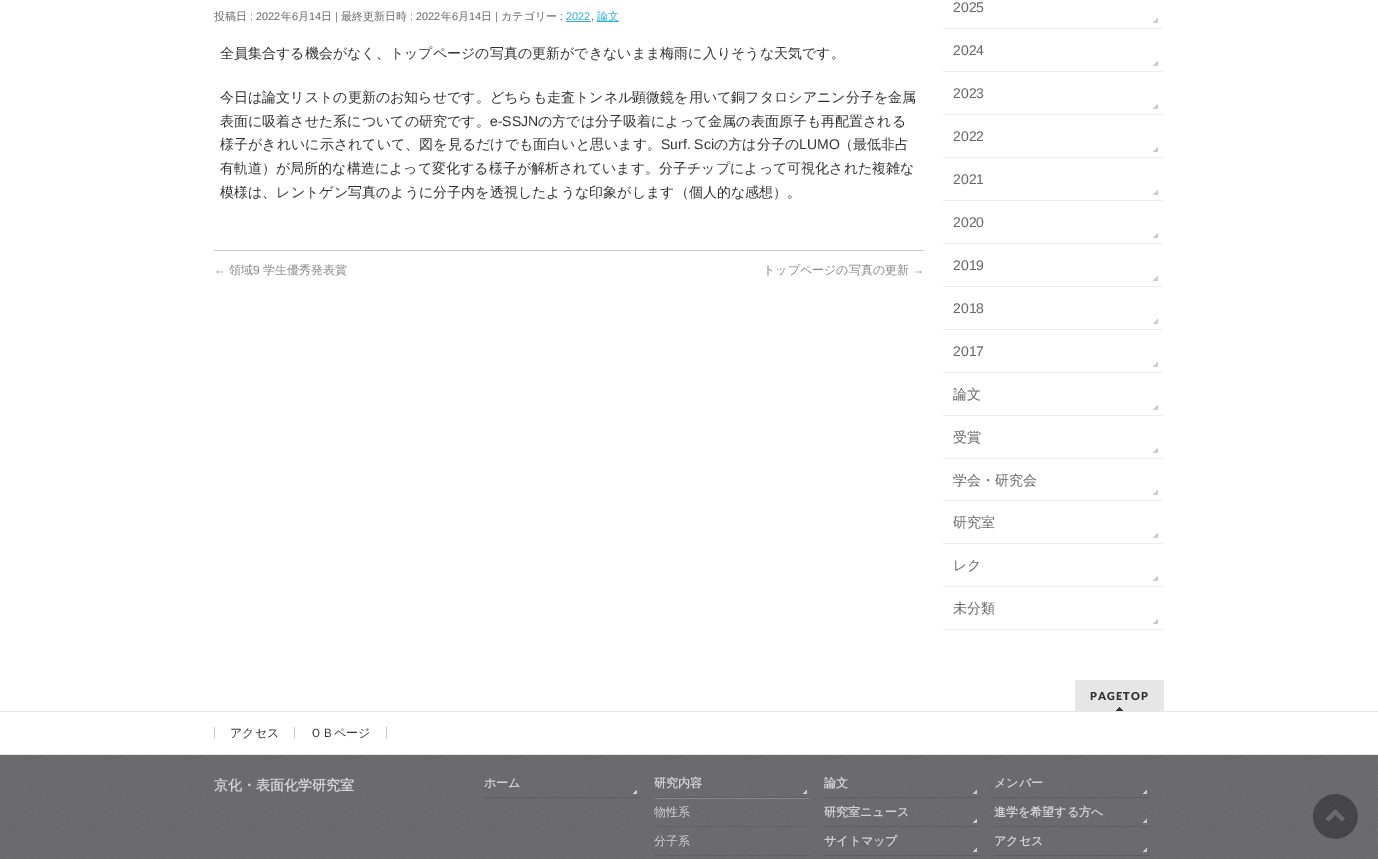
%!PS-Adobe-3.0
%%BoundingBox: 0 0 1378 859
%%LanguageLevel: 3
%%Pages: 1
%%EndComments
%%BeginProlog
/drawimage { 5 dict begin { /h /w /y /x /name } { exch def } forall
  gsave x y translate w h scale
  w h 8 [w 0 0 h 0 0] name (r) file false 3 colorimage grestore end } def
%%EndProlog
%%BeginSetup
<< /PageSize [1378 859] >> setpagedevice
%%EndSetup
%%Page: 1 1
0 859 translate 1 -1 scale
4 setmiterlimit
1 setgray
0 0 1378 859 rectfill
0.149 0.69 0.827 setrgbcolor
566 21 25 1 rectfill
597 21 22 1 rectfill
0.8 setgray
214 250 710 1 rectfill
0.933 setgray
943 28 220 1 rectfill
(images/1.raw) 1153 18 5 5 drawimage
943 71 220 1 rectfill
(images/1.raw) 1153 61 5 5 drawimage
943 114 220 1 rectfill
(images/1.raw) 1153 104 5 5 drawimage
943 157 220 1 rectfill
(images/1.raw) 1153 147 5 5 drawimage
943 200 220 1 rectfill
(images/1.raw) 1153 190 5 5 drawimage
943 243 220 1 rectfill
(images/1.raw) 1153 233 5 5 drawimage
943 286 220 1 rectfill
(images/1.raw) 1153 276 5 5 drawimage
943 329 220 1 rectfill
(images/1.raw) 1153 319 5 5 drawimage
943 372 220 1 rectfill
(images/1.raw) 1153 362 5 5 drawimage
943 415 220 1 rectfill
(images/1.raw) 1153 405 5 5 drawimage
943 458 220 1 rectfill
(images/1.raw) 1153 448 5 5 drawimage
943 500 220 1 rectfill
(images/1.raw) 1153 490 5 5 drawimage
943 543 220 1 rectfill
(images/1.raw) 1153 533 5 5 drawimage
943 586 220 1 rectfill
(images/1.raw) 1153 576 5 5 drawimage
943 629 220 1 rectfill
(images/1.raw) 1153 619 5 5 drawimage
0.902 setgray
1075 680 89 31 rectfill
(images/2.raw) 1116 707 7 4 drawimage
0 711 1378 1 rectfill
0 754 1378 1 rectfill
0.8 setgray
294 727 1 12 rectfill
214 727 1 12 rectfill
386 727 1 12 rectfill
(images/3.raw) 0 755 1378 104 drawimage
(images/4.raw) 633 790 4 4 drawimage
0.373 0.369 0.388 setrgbcolor
484 797 156 1 rectfill
0.541 0.537 0.549 setrgbcolor
654 798 156 1 rectfill
(images/5.raw) 803 790 4 4 drawimage
0.373 0.369 0.388 setrgbcolor
654 797 156 1 rectfill
0.384 0.38 0.408 setrgbcolor
654 826 156 1 rectfill
654 855 156 1 rectfill
(images/6.raw) 973 790 4 4 drawimage
0.373 0.369 0.388 setrgbcolor
824 797 156 1 rectfill
(images/7.raw) 1143 790 4 4 drawimage
994 797 156 1 rectfill
(images/8.raw) 973 819 4 4 drawimage
824 826 156 1 rectfill
(images/9.raw) 1143 819 4 4 drawimage
994 826 156 1 rectfill
(images/10.raw) 973 848 4 4 drawimage
824 855 156 1 rectfill
(images/11.raw) 1143 848 4 4 drawimage
994 855 156 1 rectfill
(images/12.raw) 1313 794 45 45 drawimage
/WenQuanYiZenHei-Medium [11 0 0 -11 0 0] selectfont
0.4 setgray
214 20 moveto (投稿日) show
/LiberationSans-Regular [11 0 0 -11 0 0] selectfont
250 20 moveto (: 2022) show
/WenQuanYiZenHei-Medium [11 0 0 -11 0 0] selectfont
281 20 moveto (年) show
/LiberationSans-Regular [11 0 0 -11 0 0] selectfont
292 20 moveto (6) show
/WenQuanYiZenHei-Medium [11 0 0 -11 0 0] selectfont
298 20 moveto (月) show
/LiberationSans-Regular [11 0 0 -11 0 0] selectfont
309 20 moveto (14) show
/WenQuanYiZenHei-Medium [11 0 0 -11 0 0] selectfont
321 20 moveto (日) show
/LiberationSans-Regular [11 0 0 -11 0 0] selectfont
335 20 moveto (|) show
/WenQuanYiZenHei-Medium [11 0 0 -11 0 0] selectfont
341 20 moveto (最終更新日時) show
/LiberationSans-Regular [11 0 0 -11 0 0] selectfont
410 20 moveto (: 2022) show
/WenQuanYiZenHei-Medium [11 0 0 -11 0 0] selectfont
441 20 moveto (年) show
/LiberationSans-Regular [11 0 0 -11 0 0] selectfont
452 20 moveto (6) show
/WenQuanYiZenHei-Medium [11 0 0 -11 0 0] selectfont
458 20 moveto (月) show
/LiberationSans-Regular [11 0 0 -11 0 0] selectfont
469 20 moveto (14) show
/WenQuanYiZenHei-Medium [11 0 0 -11 0 0] selectfont
481 20 moveto (日) show
/LiberationSans-Regular [11 0 0 -11 0 0] selectfont
495 20 moveto (|) show
/WenQuanYiZenHei-Medium [11 0 0 -11 0 0] selectfont
501 20 moveto (カテゴリー) show
/LiberationSans-Regular [11 0 0 -11 0 0] selectfont
560 20 moveto (:) show
0.149 0.69 0.827 setrgbcolor
566 20 moveto (2022) show
0.4 setgray
591 20 moveto (,) show
/WenQuanYiZenHei-Medium [11 0 0 -11 0 0] selectfont
0.149 0.69 0.827 setrgbcolor
597 20 moveto (論文) show
/WenQuanYiZenHei-Medium [14 0 0 -14 0 0] selectfont
0.2 setgray
220 58 moveto (全員集合する機会がなく、トップページの写真の更新ができないまま梅雨に入りそうな天気です。) show
220 102 moveto (今日は論文リストの更新のお知らせです。どちらも走査トンネル顕微鏡を用いて銅フタロシアニン分子を金属) show
220 126 moveto (表面に吸着させた系についての研究です。) show
/LiberationSans-Regular [14 0 0 -14 0 0] selectfont
490 126 moveto (e-SSJN) show
/WenQuanYiZenHei-Medium [14 0 0 -14 0 0] selectfont
538 126 moveto (の方では分子吸着によって金属の表面原子も再配置される) show
220 149 moveto (様子がきれいに示されていて、図を見るだけでも面白いと思います。) show
/LiberationSans-Regular [14 0 0 -14 0 0] selectfont
661 149 moveto (Surf. Sci) show
/WenQuanYiZenHei-Medium [14 0 0 -14 0 0] selectfont
714 149 moveto (の方は分子の) show
/LiberationSans-Regular [14 0 0 -14 0 0] selectfont
799 149 moveto (LUMO) show
/WenQuanYiZenHei-Medium [14 0 0 -14 0 0] selectfont
839 149 moveto (（最低非占) show
220 173 moveto (有軌道）が局所的な構造によって変化する様子が解析されています。分子チップによって可視化された複雑な) show
220 197 moveto (模様は、レントゲン写真のように分子内を透視したような印象がします（個人的な感想）。) show
/LiberationSans-Regular [12 0 0 -12 0 0] selectfont
0.533 setgray
214 274 moveto (←) show
/WenQuanYiZenHei-Medium [12 0 0 -12 0 0] selectfont
229 274 moveto (領域) show
/LiberationSans-Regular [12 0 0 -12 0 0] selectfont
253 274 moveto (9) show
/WenQuanYiZenHei-Medium [12 0 0 -12 0 0] selectfont
263 274 moveto (学生優秀発表賞) show
763 274 moveto (トップページの写真の更新) show
/LiberationSans-Regular [12 0 0 -12 0 0] selectfont
912 274 moveto (→) show
/LiberationSans-Regular [14 0 0 -14 0 0] selectfont
0.4 setgray
953 12 moveto (2025) show
953 55 moveto (2024) show
953 98 moveto (2023) show
953 141 moveto (2022) show
953 184 moveto (2021) show
953 227 moveto (2020) show
953 270 moveto (2019) show
953 313 moveto (2018) show
953 356 moveto (2017) show
/WenQuanYiZenHei-Medium [14 0 0 -14 0 0] selectfont
953 399 moveto (論文) show
953 442 moveto (受賞) show
953 485 moveto (学会・研究会) show
953 527 moveto (研究室) show
953 570 moveto (レク) show
953 613 moveto (未分類) show
/Lato-Black [11 0 0 -11 0 0] selectfont
0.2 setgray
1090 700 moveto 1 0 (PAGETOP) ashow
/WenQuanYiZenHei-Medium [12 0 0 -12 0 0] selectfont
230 737 moveto (アクセス) show
310 737 moveto (ＯＢページ) show
/WenQuanYiZenHei-Bold [14 0 0 -14 0 0] selectfont
0.824 0.824 0.827 setrgbcolor
214 790 moveto (京化・表面化学研究室) show
/WenQuanYiZenHei-Bold [12 0 0 -12 0 0] selectfont
484 787 moveto (ホーム) show
654 787 moveto (研究内容) show
/WenQuanYiZenHei-Medium [12 0 0 -12 0 0] selectfont
654 816 moveto (物性系) show
654 845 moveto (分子系) show
/WenQuanYiZenHei-Bold [12 0 0 -12 0 0] selectfont
824 787 moveto (論文) show
994 787 moveto (メンバー) show
824 816 moveto (研究室ニュース) show
994 816 moveto (進学を希望する方へ) show
824 845 moveto (サイトマップ) show
994 845 moveto (アクセス) show
showpage
%%EOF
